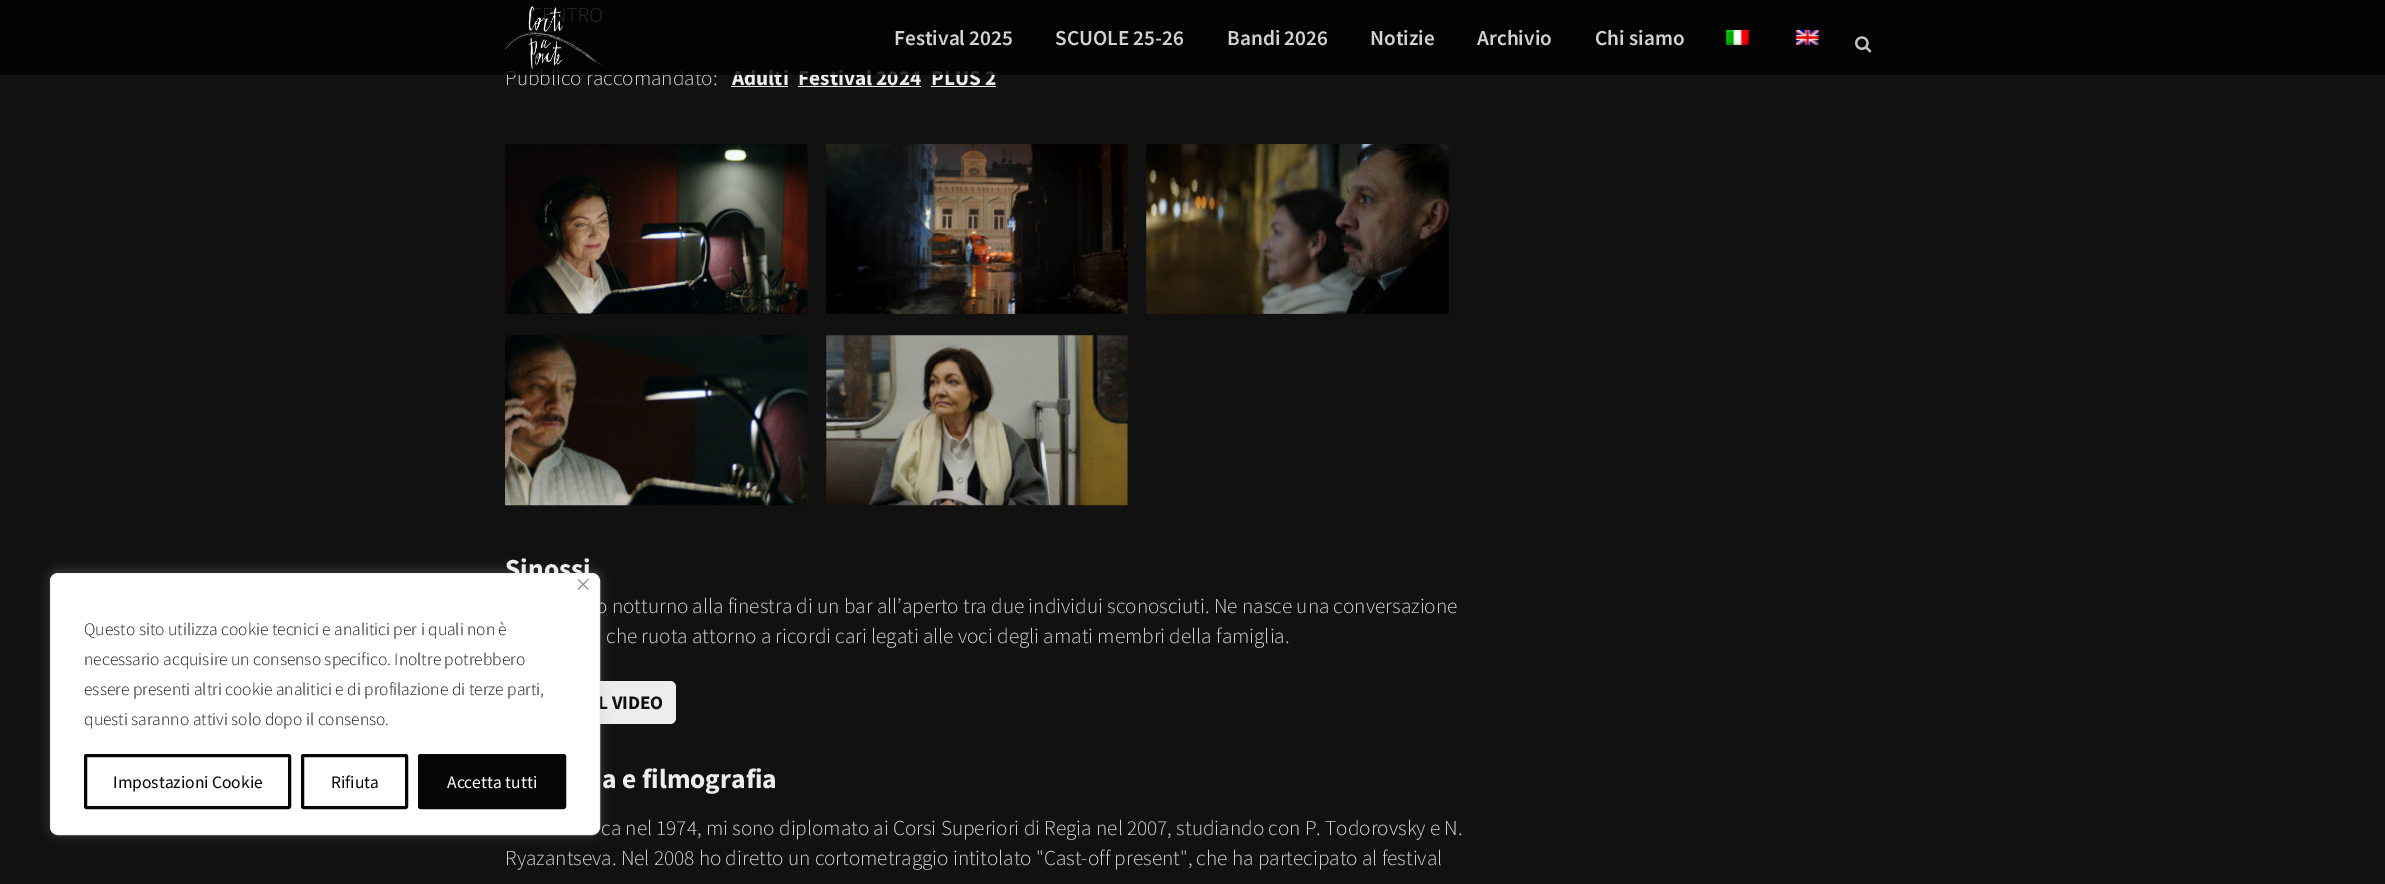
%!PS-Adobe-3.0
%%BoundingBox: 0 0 2385 884
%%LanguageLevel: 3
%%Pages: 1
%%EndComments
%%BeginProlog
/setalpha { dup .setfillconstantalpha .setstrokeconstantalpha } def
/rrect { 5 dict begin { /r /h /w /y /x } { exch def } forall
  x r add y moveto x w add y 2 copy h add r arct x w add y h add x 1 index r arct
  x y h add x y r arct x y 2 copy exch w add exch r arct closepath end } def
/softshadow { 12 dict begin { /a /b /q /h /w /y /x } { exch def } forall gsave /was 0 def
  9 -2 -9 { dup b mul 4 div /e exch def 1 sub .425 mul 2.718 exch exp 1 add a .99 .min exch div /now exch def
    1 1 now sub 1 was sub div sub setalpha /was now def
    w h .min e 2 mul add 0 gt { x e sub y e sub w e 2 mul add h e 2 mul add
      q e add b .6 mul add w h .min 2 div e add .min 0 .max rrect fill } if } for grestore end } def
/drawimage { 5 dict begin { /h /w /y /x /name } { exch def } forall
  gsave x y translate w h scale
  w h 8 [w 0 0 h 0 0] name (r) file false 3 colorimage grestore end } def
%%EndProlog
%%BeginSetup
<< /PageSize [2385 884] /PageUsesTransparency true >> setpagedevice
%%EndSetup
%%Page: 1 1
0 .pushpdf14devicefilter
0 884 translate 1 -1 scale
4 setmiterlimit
0.067 setgray
0 0 2385 884 rectfill
0.929 setgray
505 681 171 43 6 rrect fill
0.675 0.671 0.671 setrgbcolor
50 571 550 263 8 6 0.3 softshadow
gsave
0 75 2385 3 rectclip
0 setgray
0 1 2385 75 0 2 0.11 softshadow
grestore
0.929 setgray
731 86 57 1 rectfill
798 86 123 1 rectfill
931 86 65 1 rectfill
(images/6.raw) 505 144 303 170 drawimage
(images/7.raw) 826 144 302 170 drawimage
(images/8.raw) 1146 144 303 170 drawimage
(images/9.raw) 505 335 303 171 drawimage
(images/10.raw) 826 335 302 171 drawimage
/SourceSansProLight-Light [21.25 0 0 -21.25 0 0] selectfont
0.827 setgray
505 85 moveto (Pubblico raccomandato:) show
/SourceSansPro-Bold [21.25 0 0 -21.25 0 0] selectfont
0.929 setgray
732 85 moveto (Adulti) show
798 85 moveto (Festival 2024) show
931 85 moveto (PLUS 2) show
0.8 setalpha
0 setgray
0 0 2385 75 rectfill
1 setalpha
(images/5.raw) 1855 36 17 17 drawimage
(images/4.raw) 1796 30 24 15 drawimage
(images/3.raw) 1726 30 24 15 drawimage
/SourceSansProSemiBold-SemiBold [21.25 0 0 -21.25 0 0] selectfont
0.827 setgray
1595 45 moveto (Chi siamo) show
1477 45 moveto (Archivio) show
1370 45 moveto (Notizie) show
1227 45 moveto (Bandi 2026) show
1055 45 moveto (SCUOLE 25-26) show
894 45 moveto (Festival 2025) show
(images/2.raw) 505 6 97 63 drawimage
/SourceSansPro-Bold [27.5 0 0 -27.5 0 0] selectfont
0.929 setgray
505 578 moveto (Sinossi) show
/SourceSansProLight-Light [21.25 0 0 -21.25 0 0] selectfont
0.827 setgray
596 613 moveto (o notturno alla finestra di un bar all’aperto tra due individui sconosciuti. Ne nasce una conversazione) show
606 643 moveto (che ruota attorno a ricordi cari legati alle voci degli amati membri della famiglia.) show
/SourceSansPro-Bold [19 0 0 -19 0 0] selectfont
0.067 setgray
598 709 moveto (L VIDEO) show
1 setgray
50.5 573.5 549 261 7.5 rrect gsave fill grestore
0.957 setgray
stroke
(images/1.raw) 578 579 11 11 drawimage
0.024 setgray
419.5 755.5 145 52 1 rrect gsave fill grestore
3 setlinewidth
stroke
/SourceSansPro-Regular [17.5 0 0 -17.5 0 0] selectfont
1 setgray
447 788 moveto (Accetta tutti) show
0.024 setgray
302.5 755.5 104 52 1 rrect stroke
331 788 moveto (Rifiuta) show
85.5 755.5 204 52 1 rrect stroke
113 788 moveto (Impostazioni Cookie) show
/SourceSansProLight-Light [17.5 0 0 -17.5 0 0] selectfont
0.129 setgray
84 725 moveto (questi saranno attivi solo dopo il consenso.) show
84 695 moveto (essere presenti altri cookie analitici e di profilazione di terze parti,) show
84 665 moveto (necessario acquisire un consenso specifico. Inoltre potrebbero) show
84 635 moveto (Questo sito utilizza cookie tecnici e analitici per i quali non è) show
/SourceSansPro-Bold [27.5 0 0 -27.5 0 0] selectfont
0.929 setgray
602 788 moveto (a e filmografia) show
/SourceSansProLight-Light [21.25 0 0 -21.25 0 0] selectfont
0.827 setgray
601 835 moveto (ca nel 1974, mi sono diplomato ai Corsi Superiori di Regia nel 2007, studiando con P. Todorovsky e N.) show
505 865 moveto (Ryazantseva. Nel 2008 ho diretto un cortometraggio intitolato "Cast-off present", che ha partecipato al festival) show
.poppdf14devicefilter showpage
%%EOF
